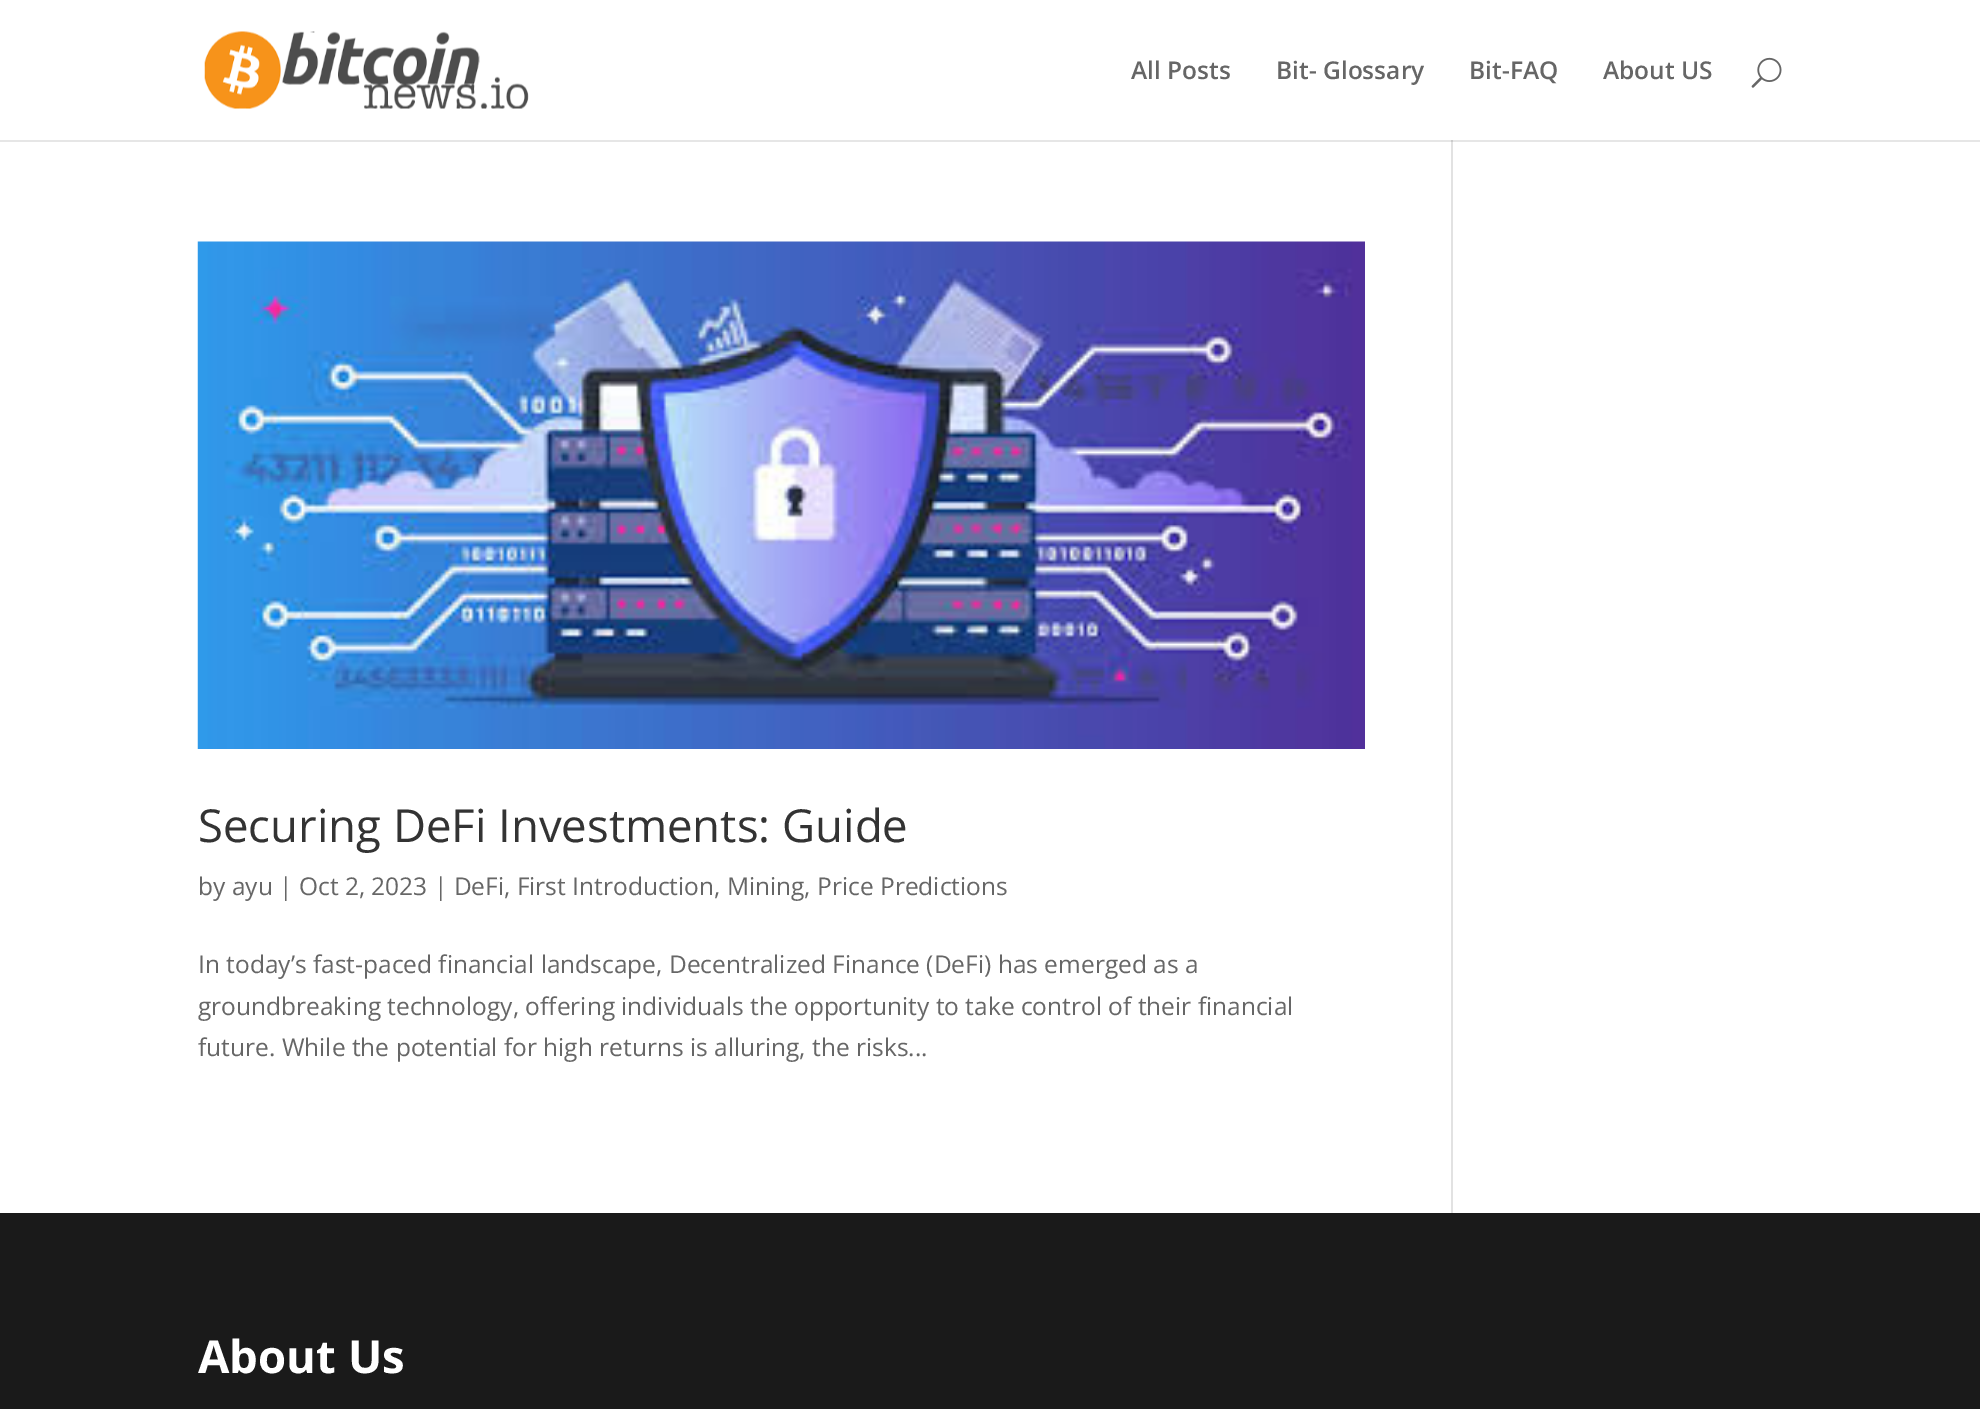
%!PS-Adobe-3.0
%%BoundingBox: 0 0 1980 1409
%%LanguageLevel: 3
%%Pages: 1
%%EndComments
%%BeginProlog
/drawimage { 5 dict begin { /h /w /y /x /name } { exch def } forall
  gsave x y translate w h scale
  w h 8 [w 0 0 h 0 0] name (r) file false 3 colorimage grestore end } def
%%EndProlog
%%BeginSetup
<< /PageSize [1980 1409] >> setpagedevice
%%EndSetup
%%Page: 1 1
0 1409 translate 1 -1 scale
4 setmiterlimit
1 setgray
0 0 1980 1409 rectfill
0.902 setgray
0 140 1980 2 rectfill
(images/1.raw) 204 31 325 78 drawimage
(images/2.raw) 1751 57 31 31 drawimage
(images/3.raw) 197 241 1168 508 drawimage
0.886 setgray
1451 140 2 1073 rectfill
0.796 setgray
1451 140 2 2 rectfill
0.102 setgray
0 1213 1980 196 rectfill
/OpenSans-SemiBold [24.5 0 0 -24.5 0 0] selectfont
0.4 setgray
1131 79 moveto (All Posts) show
1276 79 moveto (Bit- Glossary) show
1469 79 moveto (Bit-FAQ) show
1603 79 moveto (About US) show
/OpenSans-Regular [45.5 0 0 -45.5 0 0] selectfont
0.2 setgray
198 842 moveto (Securing DeFi Investments: Guide) show
/OpenSans-Regular [24.5 0 0 -24.5 0 0] selectfont
0.4 setgray
198 895 moveto (by ayu | Oct 2, 2023 | DeFi, First Introduction, Mining, Price Predictions) show
198 973 moveto (In today’s fast-paced financial landscape, Decentralized Finance \(DeFi\) has emerged as a) show
198 1015 moveto (groundbreaking technology, offering individuals the opportunity to take control of their financial) show
198 1056 moveto (future. While the potential for high returns is alluring, the risks...) show
/OpenSans-Bold [45.5 0 0 -45.5 0 0] selectfont
1 setgray
198 1373 moveto (About Us) show
showpage
%%EOF
